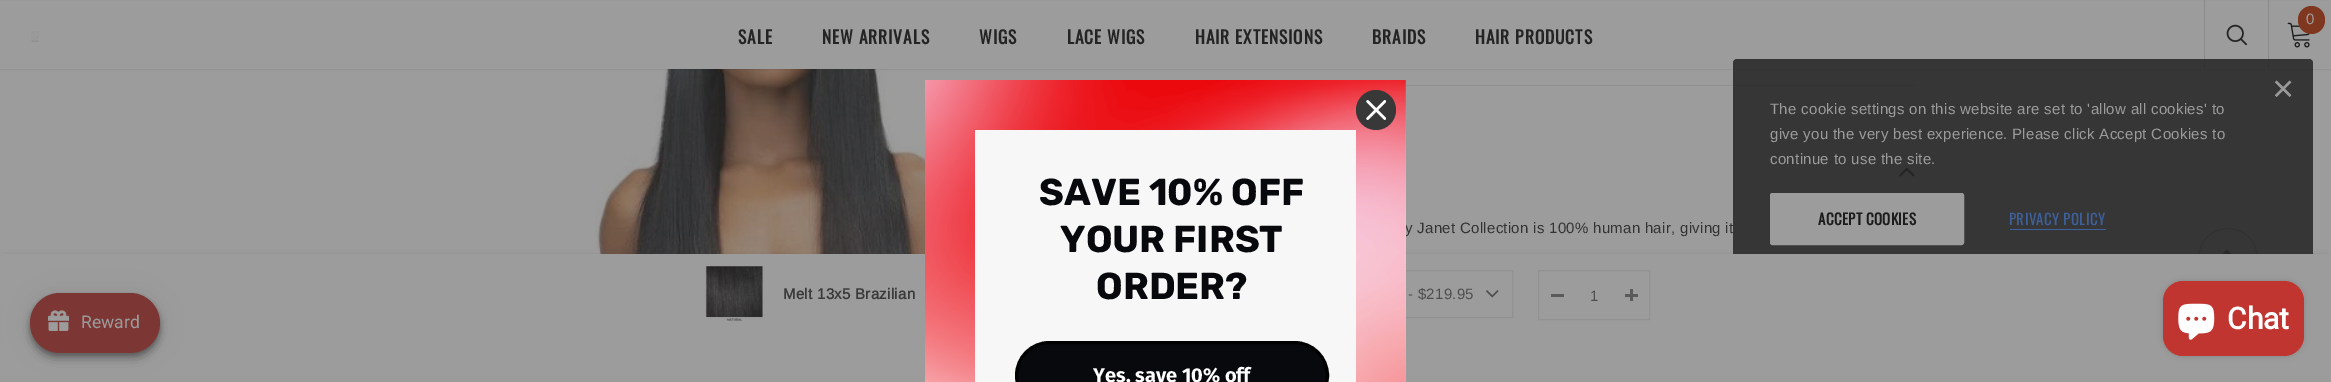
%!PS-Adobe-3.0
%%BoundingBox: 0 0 2331 382
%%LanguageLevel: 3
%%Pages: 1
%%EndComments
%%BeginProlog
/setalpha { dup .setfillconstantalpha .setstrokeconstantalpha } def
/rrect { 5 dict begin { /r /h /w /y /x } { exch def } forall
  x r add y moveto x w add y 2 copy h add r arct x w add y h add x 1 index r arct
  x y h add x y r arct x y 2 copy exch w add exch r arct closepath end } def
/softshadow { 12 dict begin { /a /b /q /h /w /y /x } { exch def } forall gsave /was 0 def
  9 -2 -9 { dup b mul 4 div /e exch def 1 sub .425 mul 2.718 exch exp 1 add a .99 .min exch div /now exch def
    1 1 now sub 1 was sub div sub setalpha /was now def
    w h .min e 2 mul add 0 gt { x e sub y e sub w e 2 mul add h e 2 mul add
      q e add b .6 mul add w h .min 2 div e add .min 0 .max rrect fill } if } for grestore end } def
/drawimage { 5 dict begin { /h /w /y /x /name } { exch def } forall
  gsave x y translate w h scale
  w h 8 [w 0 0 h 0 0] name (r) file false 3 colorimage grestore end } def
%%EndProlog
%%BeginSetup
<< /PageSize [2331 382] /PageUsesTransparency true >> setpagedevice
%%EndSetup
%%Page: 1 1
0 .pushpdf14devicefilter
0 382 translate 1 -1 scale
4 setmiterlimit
0.612 setgray
0 0 2331 382 rectfill
(images/5.raw) 595 69 370 185 drawimage
0.11 setgray
0 1 2331 69 0 0.5 0.1 softshadow
0.612 setgray
0 1 2331 68 rectfill
(images/1.raw) 2287 22 23 26 drawimage
0.502 0.216 0.125 setrgbcolor
2298 6 27 28 13.5 rrect fill
(images/2.raw) 31 31 8 11 drawimage
0.541 setgray
2204 0 1 69 rectfill
(images/3.raw) 2226 24 22 22 drawimage
2268 0 1 69 rectfill
0.561 setgray
1405 85 511 1 rectfill
(images/6.raw) 1899 167 16 10 drawimage
0.525 setgray
newpath 2228 258 29.5 0 360 arc closepath stroke
(images/9.raw) 2222 250 10 4 drawimage
/Arimo-Regular [15 0 0 -15 0 0] selectfont
0.608 setgray
2306 24 moveto 0.3 0 (0) ashow
/Oswald-Bold [17.5 0 0 -17.5 0 0] selectfont
0.141 setgray
738 44 moveto 0.9 0 (SALE) ashow
822 44 moveto 0.9 0 (NEW ARRIVALS) ashow
979 44 moveto 0.9 0 (WIGS) ashow
1067 44 moveto 0.9 0 (LACE WIGS) ashow
1195 44 moveto 0.9 0 (HAIR EXTENSIONS) ashow
1372 44 moveto 0.9 0 (BRAIDS) ashow
1475 44 moveto 0.9 0 (HAIR PRODUCTS) ashow
/Arimo-Regular [15 0 0 -15 0 0] selectfont
0.2 setgray
1405 233 moveto 0.3 0 (y Janet Collection is 100% human hair, giving it) ashow
0.8 setalpha
0.11 setgray
1733 59 580 224 4 rrect fill
1 setalpha
(images/4.raw) 2274 80 18 17 drawimage
/Oswald-Regular [15 0 0 -15 0 0] selectfont
0.243 0.38 0.612 setrgbcolor
2009 225 moveto 0.3 0 (PRIVACY POLICY) ashow
2010 229 96 1 rectfill
0.612 setgray
1770.5 193.5 193 51 2 rrect gsave fill grestore
stroke
/Oswald-Bold [15 0 0 -15 0 0] selectfont
0.11 setgray
1818 225 moveto 0.3 0 (ACCEPT COOKIES) ashow
/Arimo-Regular [15 0 0 -15 0 0] selectfont
0.608 setgray
1770 164 moveto 0.3 0 (continue to use the site.) ashow
1770 139 moveto 0.3 0 (give you the very best experience. Please click Accept Cookies to) ashow
1770 114 moveto 0.3 0 (The cookie settings on this website are set to 'allow all cookies' to) ashow
0.11 setgray
4 254 2324 121 0 2 0.1 softshadow
0.612 setgray
2 254 2328 123 rectfill
(images/7.raw) 705 266 58 55 drawimage
/Arimo-Bold [15 0 0 -15 0 0] selectfont
0.227 setgray
783 299 moveto 0.3 0 (Melt 13x5 Brazilian) ashow
0.573 setgray
1318.5 270.5 194 47 rectstroke
/Arimo-Regular [15 0 0 -15 0 0] selectfont
0.306 setgray
1408 299 moveto 0.3 0 (- $219.95) ashow
(images/8.raw) 1486 290 13 8 drawimage
0.573 setgray
1538.5 270.5 111 49 rectstroke
0.353 setgray
1551 294 13 3 rectfill
0.306 setgray
1590 301 moveto (1) show
0.353 setgray
1625 294 13 3 rectfill
1630 289 3 12 rectfill
0.11 setgray
30 294 130 60 30 11 0.12 softshadow
30 300 130 60 30 6 0.14 softshadow
31 298 128 57 28.5 3 0.2 softshadow
(images/11.raw) 925 80 481 302 drawimage
0.22 setgray
newpath 1376 110 20 0 360 arc closepath fill
(images/10.raw) 1366 100 20 20 drawimage
0.969 setgray
975 130 381 252 rectfill
/Rubik-Bold [37.5 0 0 -37.5 0 0] selectfont
0.031 0.035 0.051 setrgbcolor
1039 205 moveto (SAVE 10% OFF) show
1060 252 moveto (YOUR FIRST) show
1096 299 moveto (ORDER?) show
1016.5 342.5 311 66 33 rrect gsave fill grestore
0 setgray
3 setlinewidth
stroke
/FiraSans-Bold [20 0 0 -20 0 0] selectfont
1 setgray
1093 382 moveto (Yes, save 10% off) show
0 setgray
2163 281 141 75 20 3 0.15 softshadow
0.753 0.208 0.188 setrgbcolor
2163 281 141 75 20 rrect fill
(images/12.raw) 2178 303 37 37 drawimage
/Roboto-Bold [30 0 0 -30 0 0] selectfont
1 setgray
2227 329 moveto (Chat) show
0.11 setgray
30 300 130 60 30 6 0.14 softshadow
31 298 128 57 28.5 3 0.2 softshadow
0.486 0.216 0.204 setrgbcolor
30 293 130 60 30 rrect fill
(images/13.raw) 48 310 21 21 drawimage
/Roboto-Regular [17.5 0 0 -17.5 0 0] selectfont
0.608 setgray
81 328 moveto (Reward) show
.poppdf14devicefilter showpage
%%EOF
